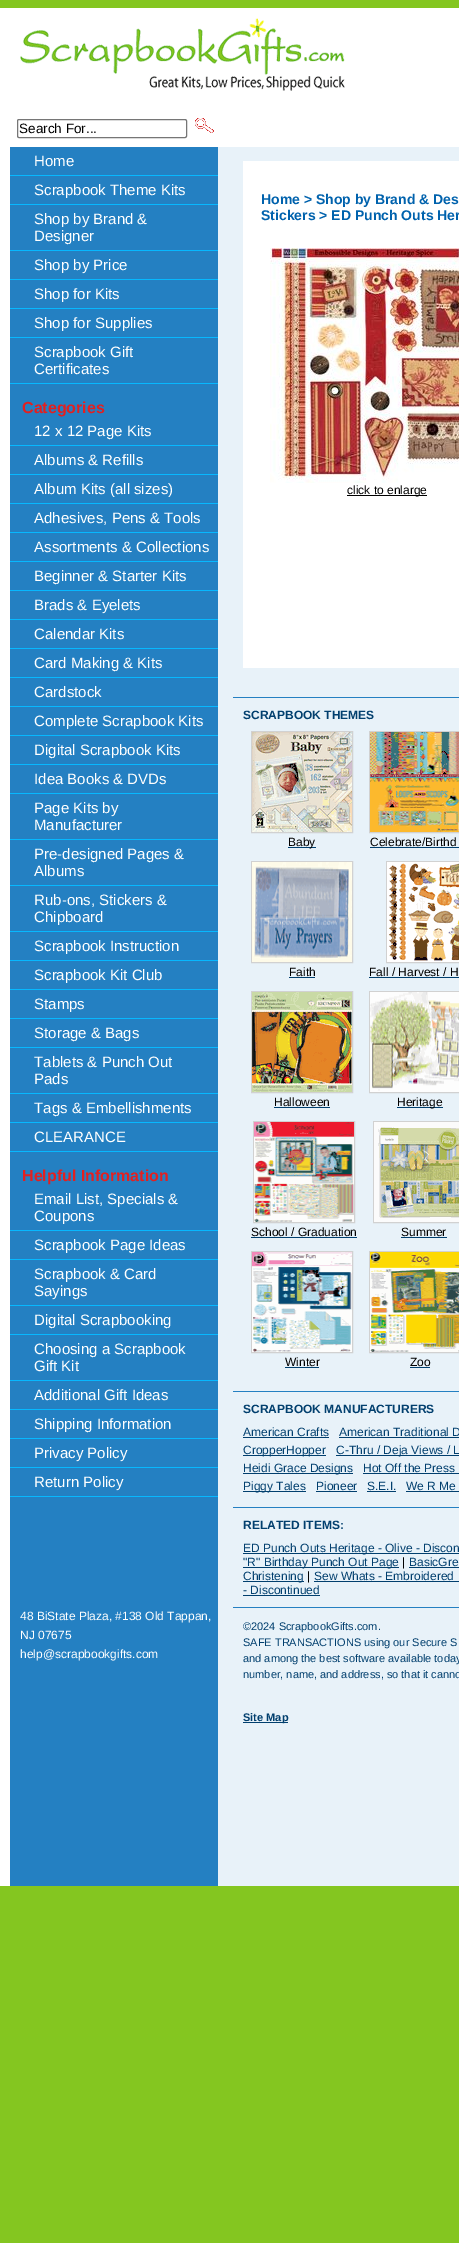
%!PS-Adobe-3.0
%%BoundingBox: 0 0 459 2243
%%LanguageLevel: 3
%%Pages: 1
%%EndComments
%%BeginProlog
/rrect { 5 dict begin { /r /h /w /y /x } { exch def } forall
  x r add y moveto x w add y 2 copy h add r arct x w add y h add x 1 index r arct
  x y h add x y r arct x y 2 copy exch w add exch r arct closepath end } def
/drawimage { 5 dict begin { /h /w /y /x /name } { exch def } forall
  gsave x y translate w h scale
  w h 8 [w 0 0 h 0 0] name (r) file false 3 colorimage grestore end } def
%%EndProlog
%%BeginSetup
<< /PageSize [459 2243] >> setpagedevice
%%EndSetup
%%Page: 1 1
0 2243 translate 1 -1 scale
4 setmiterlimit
0.518 0.776 0.125 setrgbcolor
0 0 459 2243 rectfill
1 setgray
0 8 459 1878 rectfill
(images/1.raw) 20 18 325 73 drawimage
0.463 setgray
17.5 119.5 169 18 1.5 rrect stroke
(images/2.raw) 195 118 19 15 drawimage
0.141 0.502 0.761 setrgbcolor
10 147 208 1739 rectfill
0.027 0.722 1 setrgbcolor
10 175 208 1 rectfill
10 204 208 1 rectfill
10 250 208 1 rectfill
10 279 208 1 rectfill
10 308 208 1 rectfill
10 337 208 1 rectfill
10 383 208 1 rectfill
10 445 208 1 rectfill
10 474 208 1 rectfill
10 503 208 1 rectfill
10 532 208 1 rectfill
10 561 208 1 rectfill
10 590 208 1 rectfill
10 619 208 1 rectfill
10 648 208 1 rectfill
10 677 208 1 rectfill
10 706 208 1 rectfill
10 735 208 1 rectfill
10 764 208 1 rectfill
10 793 208 1 rectfill
10 839 208 1 rectfill
10 885 208 1 rectfill
10 931 208 1 rectfill
10 960 208 1 rectfill
10 989 208 1 rectfill
10 1018 208 1 rectfill
10 1047 208 1 rectfill
10 1093 208 1 rectfill
10 1122 208 1 rectfill
10 1151 208 1 rectfill
10 1230 208 1 rectfill
10 1259 208 1 rectfill
10 1305 208 1 rectfill
10 1334 208 1 rectfill
10 1380 208 1 rectfill
10 1409 208 1 rectfill
10 1438 208 1 rectfill
10 1467 208 1 rectfill
10 1496 208 1 rectfill
0.91 0.949 0.976 setrgbcolor
218 147 241 1739 rectfill
1 setgray
243 161 216 507 rectfill
(images/3.raw) 270 248 189 235 drawimage
0 setgray
347 495 80 1 rectfill
0.141 0.502 0.761 setrgbcolor
233 697 226 1 rectfill
0.82 setgray
251.5 731.5 101 101 rectstroke
(images/4.raw) 252 732 100 100 drawimage
0.004 0.247 0.431 setrgbcolor
288 847 28 1 rectfill
0.82 setgray
369.5 731.5 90 101 rectstroke
(images/5.raw) 370 732 89 100 drawimage
0.004 0.247 0.431 setrgbcolor
370 847 89 1 rectfill
0.82 setgray
251.5 861.5 101 101 rectstroke
(images/6.raw) 252 862 100 100 drawimage
0.004 0.247 0.431 setrgbcolor
289 977 26 1 rectfill
0.82 setgray
386.5 861.5 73 101 rectstroke
(images/7.raw) 387 862 72 100 drawimage
0.004 0.247 0.431 setrgbcolor
369 977 90 1 rectfill
0.82 setgray
251.5 991.5 101 101 rectstroke
(images/8.raw) 252 992 100 100 drawimage
0.004 0.247 0.431 setrgbcolor
274 1107 56 1 rectfill
0.82 setgray
369.5 991.5 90 101 rectstroke
(images/9.raw) 370 992 89 100 drawimage
0.004 0.247 0.431 setrgbcolor
397 1107 46 1 rectfill
0.82 setgray
253.5 1121.5 101 101 rectstroke
(images/10.raw) 254 1122 100 100 drawimage
0.004 0.247 0.431 setrgbcolor
251 1237 106 1 rectfill
0.82 setgray
373.5 1121.5 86 101 rectstroke
(images/11.raw) 374 1122 85 100 drawimage
0.004 0.247 0.431 setrgbcolor
401 1237 46 1 rectfill
0.82 setgray
251.5 1251.5 101 101 rectstroke
(images/12.raw) 252 1252 100 100 drawimage
0.004 0.247 0.431 setrgbcolor
285 1367 34 1 rectfill
0.82 setgray
369.5 1251.5 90 101 rectstroke
(images/13.raw) 370 1252 89 100 drawimage
0.004 0.247 0.431 setrgbcolor
410 1367 20 1 rectfill
0.141 0.502 0.761 setrgbcolor
233 1391 226 1 rectfill
0.004 0.247 0.431 setrgbcolor
243 1437 86 1 rectfill
339 1437 120 1 rectfill
243 1455 83 1 rectfill
336 1455 123 1 rectfill
243 1473 110 1 rectfill
363 1473 96 1 rectfill
243 1491 63 1 rectfill
316 1491 41 1 rectfill
367 1491 29 1 rectfill
406 1491 53 1 rectfill
0.141 0.502 0.761 setrgbcolor
233 1507 226 1 rectfill
0.004 0.247 0.431 setrgbcolor
243 1553 216 1 rectfill
243 1567 156 1 rectfill
409 1567 50 1 rectfill
243 1581 61 1 rectfill
314 1581 145 1 rectfill
243 1595 77 1 rectfill
0.141 0.502 0.761 setrgbcolor
233 1607 226 1 rectfill
0.004 0.247 0.431 setrgbcolor
243 1722 45 1 rectfill
/LiberationSans-Regular [13.5 0 0 -13.5 0 0] selectfont
0 setgray
19 133 moveto (Search For...) show
/LiberationSans-Regular [15 0 0 -15 0 0] selectfont
1 setgray
34 166 moveto (Home) show
34 195 moveto (Scrapbook Theme Kits) show
34 224 moveto (Shop by Brand &) show
34 241 moveto (Designer) show
34 270 moveto (Shop by Price) show
34 299 moveto (Shop for Kits) show
34 328 moveto (Shop for Supplies) show
34 357 moveto (Scrapbook Gift) show
34 374 moveto (Certificates) show
/LiberationSans-Bold [16 0 0 -16 0 0] selectfont
0.89 0.125 0.125 setrgbcolor
22 413 moveto (Categories) show
/LiberationSans-Regular [15 0 0 -15 0 0] selectfont
1 setgray
34 436 moveto (12 x 12 Page Kits) show
34 465 moveto (Albums & Refills) show
34 494 moveto (Album Kits \(all sizes\)) show
34 523 moveto (Adhesives, Pens & Tools) show
34 552 moveto (Assortments & Collections) show
34 581 moveto (Beginner & Starter Kits) show
34 610 moveto (Brads & Eyelets) show
34 639 moveto (Calendar Kits) show
34 668 moveto (Card Making & Kits) show
34 697 moveto (Cardstock) show
34 726 moveto (Complete Scrapbook Kits) show
34 755 moveto (Digital Scrapbook Kits) show
34 784 moveto (Idea Books & DVDs) show
34 813 moveto (Page Kits by) show
34 830 moveto (Manufacturer) show
34 859 moveto (Pre-designed Pages &) show
34 876 moveto (Albums) show
34 905 moveto (Rub-ons, Stickers &) show
34 922 moveto (Chipboard) show
34 951 moveto (Scrapbook Instruction) show
34 980 moveto (Scrapbook Kit Club) show
34 1009 moveto (Stamps) show
34 1038 moveto (Storage & Bags) show
34 1067 moveto (Tablets & Punch Out) show
34 1084 moveto (Pads) show
34 1113 moveto (Tags & Embellishments) show
34 1142 moveto (CLEARANCE) show
/LiberationSans-Bold [16 0 0 -16 0 0] selectfont
0.89 0.125 0.125 setrgbcolor
22 1181 moveto (Helpful Information) show
/LiberationSans-Regular [15 0 0 -15 0 0] selectfont
1 setgray
34 1204 moveto (Email List, Specials &) show
34 1221 moveto (Coupons) show
34 1250 moveto (Scrapbook Page Ideas) show
34 1279 moveto (Scrapbook & Card) show
34 1296 moveto (Sayings) show
34 1325 moveto (Digital Scrapbooking) show
34 1354 moveto (Choosing a Scrapbook) show
34 1371 moveto (Gift Kit) show
34 1400 moveto (Additional Gift Ideas) show
34 1429 moveto (Shipping Information) show
34 1458 moveto (Privacy Policy) show
34 1487 moveto (Return Policy) show
/LiberationSans-Bold [14 0 0 -14 0 0] selectfont
0 0.384 0.678 setrgbcolor
261 204 moveto (Home > Shop by Brand & Des) show
261 220 moveto (Stickers > ED Punch Outs Her) show
/LiberationSans-Regular [12 0 0 -12 0 0] selectfont
0 setgray
347 494 moveto (click to enlarge) show
/LiberationSans-Bold [12 0 0 -12 0 0] selectfont
0.004 0.247 0.431 setrgbcolor
243 719 moveto (SCRAPBOOK THEMES) show
/LiberationSans-Regular [12 0 0 -12 0 0] selectfont
0 setgray
288 846 moveto (Baby) show
370 846 moveto (Celebrate/Birthd) show
289 976 moveto (Faith) show
369 976 moveto (Fall / Harvest / H) show
274 1106 moveto (Halloween) show
397 1106 moveto (Heritage) show
251 1236 moveto (School / Graduation) show
401 1236 moveto (Summer) show
285 1366 moveto (Winter) show
410 1366 moveto (Zoo) show
/LiberationSans-Bold [12 0 0 -12 0 0] selectfont
0.004 0.247 0.431 setrgbcolor
243 1413 moveto (SCRAPBOOK MANUFACTURERS) show
/LiberationSans-Regular [12 0 0 -12 0 0] selectfont
243 1436 moveto (American Crafts) show
339 1436 moveto (American Traditional D) show
243 1454 moveto (CropperHopper) show
336 1454 moveto (C-Thru / Deja Views / L) show
243 1472 moveto (Heidi Grace Designs) show
363 1472 moveto (Hot Off the Press) show
243 1490 moveto (Piggy Tales) show
316 1490 moveto (Pioneer) show
367 1490 moveto (S.E.I.) show
406 1490 moveto (We R Me) show
/LiberationSans-Bold [12 0 0 -12 0 0] selectfont
243 1529 moveto (RELATED ITEMS:) show
/LiberationSans-Regular [12 0 0 -12 0 0] selectfont
243 1552 moveto (ED Punch Outs Heritage - Olive - Discon) show
243 1566 moveto ("R" Birthday Punch Out Page) show
0 setgray
402 1566 moveto (|) show
0.004 0.247 0.431 setrgbcolor
409 1566 moveto (BasicGre) show
243 1580 moveto (Christening) show
0 setgray
307 1580 moveto (|) show
0.004 0.247 0.431 setrgbcolor
314 1580 moveto (Sew Whats - Embroidered) show
243 1594 moveto (- Discontinued) show
1 setgray
20 1620 moveto (48 BiState Plaza, #138 Old Tappan,) show
20 1639 moveto (NJ 07675) show
20 1658 moveto (help@scrapbookgifts.com) show
/LiberationSans-Regular [11 0 0 -11 0 0] selectfont
0.004 0.247 0.431 setrgbcolor
243 1630 moveto (©2024 ScrapbookGifts.com.) show
243 1646 moveto (SAFE TRANSACTIONS using our Secure S) show
243 1662 moveto (and among the best software available today) show
243 1678 moveto (number, name, and address, so that it canno) show
/LiberationSans-Bold [11 0 0 -11 0 0] selectfont
243 1721 moveto (Site Map) show
showpage
%%EOF
